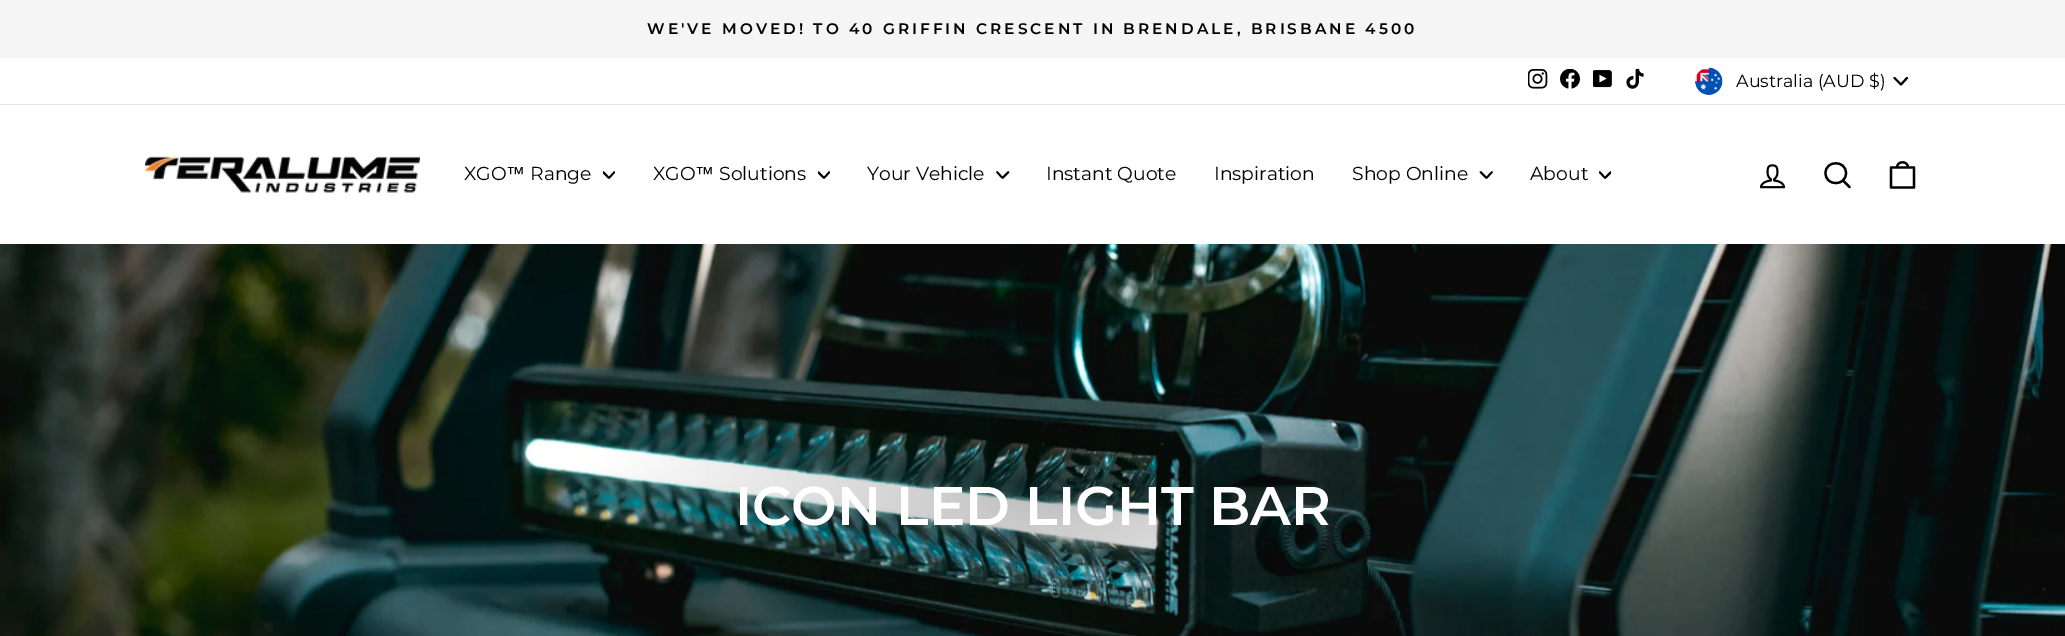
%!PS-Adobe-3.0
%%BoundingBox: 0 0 2065 636
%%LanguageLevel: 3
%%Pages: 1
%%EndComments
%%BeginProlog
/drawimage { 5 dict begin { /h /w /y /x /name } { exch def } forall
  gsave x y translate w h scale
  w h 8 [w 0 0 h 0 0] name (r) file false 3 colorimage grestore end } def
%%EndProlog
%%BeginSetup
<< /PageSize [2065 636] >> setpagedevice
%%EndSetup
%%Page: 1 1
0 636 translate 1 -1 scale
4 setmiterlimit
1 setgray
0 0 2065 636 rectfill
0.961 setgray
0 0 2065 58 rectfill
(images/1.raw) 1528 69 20 20 drawimage
(images/2.raw) 1560 69 20 20 drawimage
(images/3.raw) 1593 70 19 18 drawimage
(images/4.raw) 1626 69 18 20 drawimage
(images/5.raw) 1695 67 28 28 drawimage
0 setgray
2 setlinewidth
1 setlinecap
1 setlinejoin
newpath 1894.5 78 moveto 1901 84.5 lineto 1907 78 lineto stroke
0.902 setgray
0 104 2065 1 rectfill
(images/6.raw) 145 156 275 37 drawimage
gsave
603 169 12 12 rectclip
0 setgray
1.8 setlinewidth
newpath 603 172 moveto 609 178 lineto 614.5 172 lineto stroke
grestore
gsave
818 169 12 12 rectclip
0 setgray
1.8 setlinewidth
newpath 818 172 moveto 824 178 lineto 829.5 172 lineto stroke
grestore
0 setgray
1.8 setlinewidth
newpath 997 172 moveto 1002.5 178 lineto 1008.5 172 lineto stroke
newpath 1480.5 172 moveto 1486.5 178 lineto 1492 172 lineto stroke
gsave
1599 169 12 12 rectclip
newpath 1599.5 172 moveto 1605 178 lineto 1611 172 lineto stroke
grestore
(images/7.raw) 1759 164 27 25 drawimage
2.2 setlinewidth
newpath 1846 173 moveto 1846 186.5 1825.5 186.5 1825.5 173 curveto 1825.5 160 1846 160 1846 173 curveto closepath 1849.5 187 moveto 1843 180.5 lineto stroke
newpath 1891 167.5 moveto 1914 167.5 lineto 1914 187.5 lineto 1891 187.5 lineto closepath 1897 167.5 moveto 1897 160.5 1908 160.5 1908 167.5 curveto stroke
(images/8.raw) 0 244 2065 392 drawimage
/Montserrat-SemiBold [15.3 0 0 -15.3 0 0] selectfont
647 34 moveto 3.05 0 (WE'VE MOVED! TO 40 GRIFFIN CRESCENT IN BRENDALE, BRISBANE 4500) ashow
/Montserrat-Regular [17.5 0 0 -17.5 0 0] selectfont
1736 87 moveto (Australia \(AUD $\)) show
/Montserrat-Regular [18.75 0 0 -18.75 0 0] selectfont
464 180 moveto (XGO) show
/LiberationSans-Regular [18.75 0 0 -18.75 0 0] selectfont
506 180 moveto (™) show
/Montserrat-Regular [18.75 0 0 -18.75 0 0] selectfont
530 180 moveto (Range) show
653 180 moveto (XGO) show
/LiberationSans-Regular [18.75 0 0 -18.75 0 0] selectfont
695 180 moveto (™) show
/Montserrat-Regular [18.75 0 0 -18.75 0 0] selectfont
719 180 moveto (Solutions) show
867 180 moveto (Your Vehicle) show
1046 180 moveto (Instant Quote) show
1214 180 moveto (Inspiration) show
1352 180 moveto (Shop Online) show
1530 180 moveto (About) show
/Montserrat-SemiBold [54.4 0 0 -54.4 0 0] selectfont
1 setgray
735 525 moveto (ICON LED LIGHT BAR) show
showpage
%%EOF
